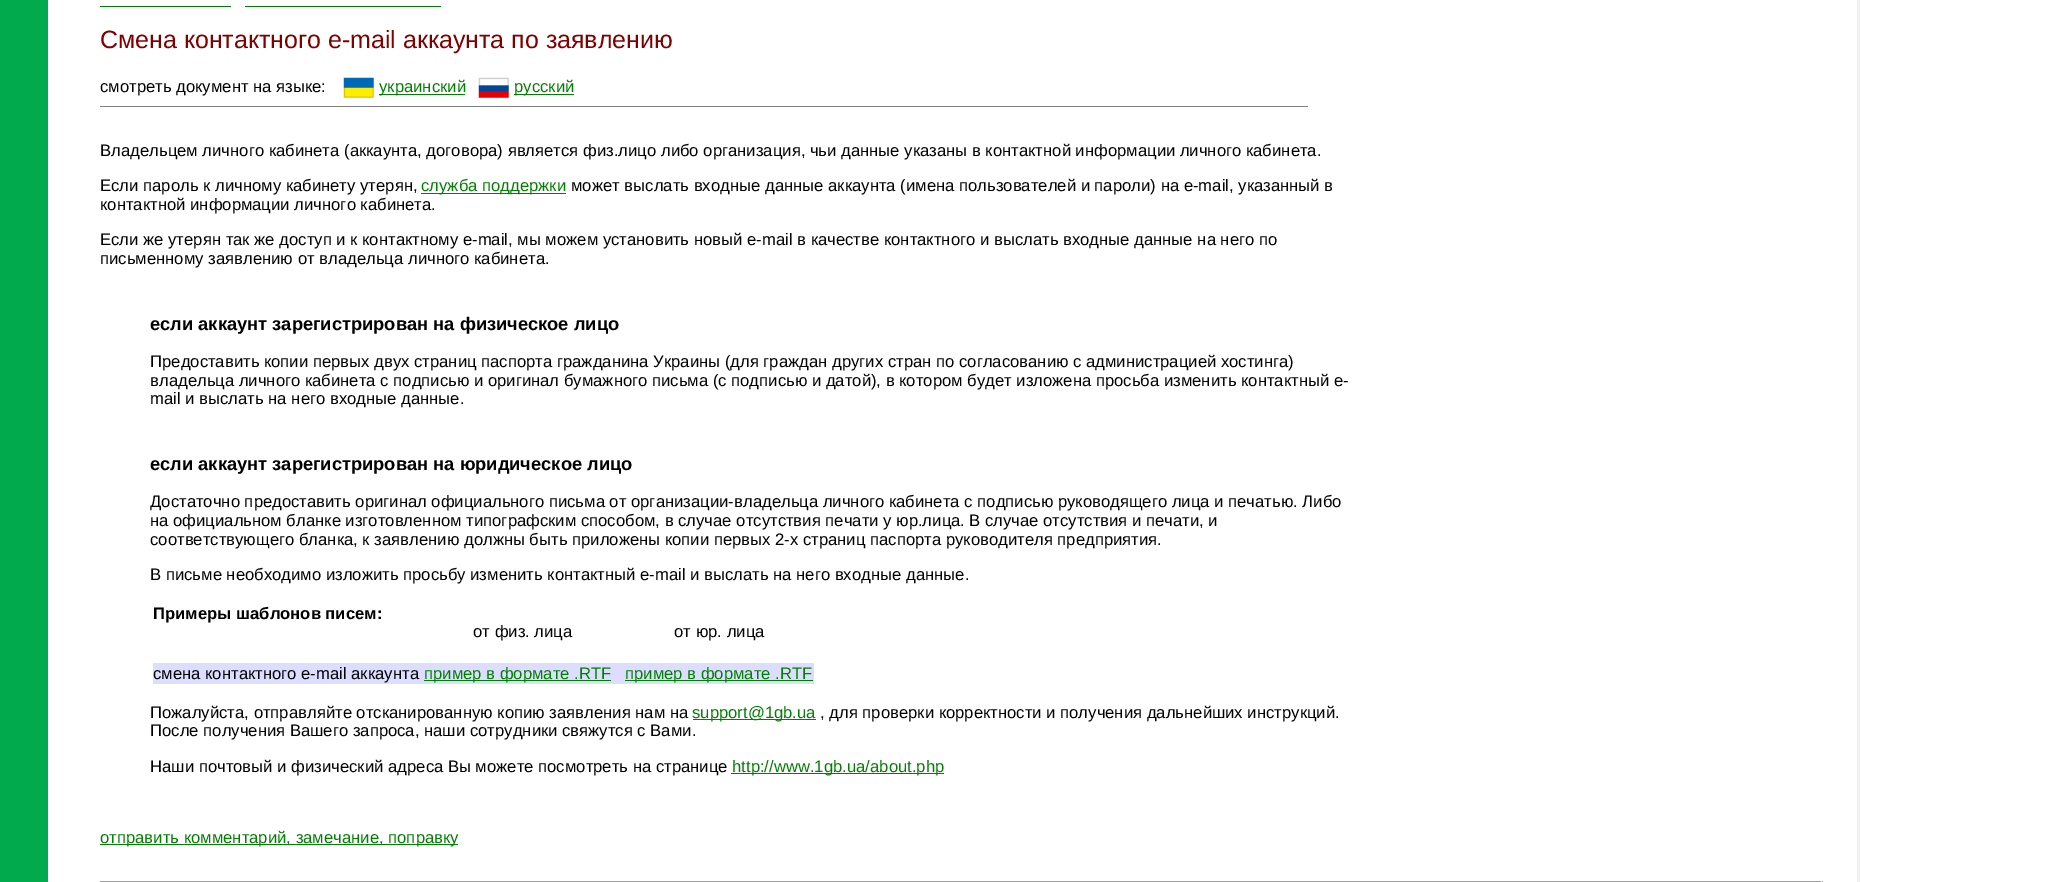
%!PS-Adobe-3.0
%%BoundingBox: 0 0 2066 882
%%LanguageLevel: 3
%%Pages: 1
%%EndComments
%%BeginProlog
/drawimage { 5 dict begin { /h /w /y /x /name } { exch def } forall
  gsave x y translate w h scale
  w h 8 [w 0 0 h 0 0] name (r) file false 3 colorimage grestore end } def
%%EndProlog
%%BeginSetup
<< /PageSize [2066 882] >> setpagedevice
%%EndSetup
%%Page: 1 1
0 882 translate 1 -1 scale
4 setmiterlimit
1 setgray
0 0 2066 882 rectfill
0 0.667 0.302 setrgbcolor
0 0 48 882 rectfill
0 0.502 0 setrgbcolor
100 6 131 1 rectfill
245 6 196 1 rectfill
(images/1.raw) 343 77 31 21 drawimage
379 94 86 1 rectfill
(images/2.raw) 478 77 31 21 drawimage
514 94 60 1 rectfill
0.502 setgray
100 106 1208 1 rectfill
0 0.502 0 setrgbcolor
421 193 145 1 rectfill
0.867 0.867 1 setrgbcolor
153 663 661 21 rectfill
0 0.502 0 setrgbcolor
424 680 187 1 rectfill
625 680 188 1 rectfill
693 719 123 1 rectfill
731 773 213 1 rectfill
100 844 358 1 rectfill
0.624 setgray
100 881 1723 1 rectfill
0.933 setgray
1821 881 1 1 rectfill
0.945 setgray
1857 0 3 882 rectfill
/LiberationSans-Regular [25 0 0 -25 0 0] selectfont
0.502 0 0 setrgbcolor
100 48 moveto (Смена контактного e-mail аккаунта по заявлению) show
/LiberationSans-Regular [16.67 0 0 -16.67 0 0] selectfont
0 setgray
100 92 moveto (смотреть документ на языке:) show
0 0.502 0 setrgbcolor
379 92 moveto (украинский) show
514 92 moveto (русский) show
0 setgray
100 156 moveto (Владельцем личного кабинета \(аккаунта, договора\) является физ.лицо либо организация, чьи данные указаны в контактной информации личного кабинета.) show
100 191 moveto (Если пароль к личному кабинету утерян,) show
0 0.502 0 setrgbcolor
421 191 moveto (служба поддержки) show
0 setgray
571 191 moveto (может выслать входные данные аккаунта \(имена пользователей и пароли\) на e-mail, указанный в) show
100 210 moveto (контактной информации личного кабинета.) show
100 245 moveto (Если же утерян так же доступ и к контактному e-mail, мы можем установить новый e-mail в качестве контактного и выслать входные данные на него по) show
100 264 moveto (письменному заявлению от владельца личного кабинета.) show
/LiberationSans-Bold [18.3 0 0 -18.3 0 0] selectfont
150 330 moveto (если аккаунт зарегистрирован на физическое лицо) show
/LiberationSans-Regular [16.67 0 0 -16.67 0 0] selectfont
150 367 moveto (Предоставить копии первых двух страниц паспорта гражданина Украины \(для граждан других стран по согласованию с администрацией хостинга\)) show
150 386 moveto (владельца личного кабинета с подписью и оригинал бумажного письма \(с подписью и датой\), в котором будет изложена просьба изменить контактный e-) show
150 404 moveto (mail и выслать на него входные данные.) show
/LiberationSans-Bold [18.3 0 0 -18.3 0 0] selectfont
150 470 moveto (если аккаунт зарегистрирован на юридическое лицо) show
/LiberationSans-Regular [16.67 0 0 -16.67 0 0] selectfont
150 507 moveto (Достаточно предоставить оригинал официального письма от организации-владельца личного кабинета c подписью руководящего лица и печатью. Либо) show
150 526 moveto (на официальном бланке изготовленном типографским способом, в случае отсутствия печати у юр.лица.) show
969 526 moveto (В случае отсутствия и печати, и) show
150 545 moveto (соответствующего бланка, к заявлению должны быть приложены копии первых 2-х страниц паспорта руководителя предприятия.) show
150 580 moveto (В письме необходимо изложить просьбу изменить контактный e-mail и выслать на него входные данные.) show
/LiberationSans-Bold [16.67 0 0 -16.67 0 0] selectfont
153 619 moveto (Примеры шаблонов писем:) show
/LiberationSans-Regular [16.67 0 0 -16.67 0 0] selectfont
473 637 moveto (от физ. лица) show
674 637 moveto (от юр. лица) show
153 679 moveto (смена контактного e-mail аккаунта) show
0 0.502 0 setrgbcolor
424 679 moveto (пример в формате .RTF) show
625 679 moveto (пример в формате .RTF) show
0 setgray
150 718 moveto (Пожалуйста, отправляйте отсканированную копию заявления нам на) show
0 0.502 0 setrgbcolor
692 718 moveto (support@1gb.ua) show
0 setgray
820 718 moveto (, для проверки корректности и получения дальнейших инструкций.) show
150 736 moveto (После получения Вашего запроса, наши сотрудники свяжутся с Вами.) show
150 772 moveto (Наши почтовый и физический адреса Вы можете посмотреть на странице) show
0 0.502 0 setrgbcolor
732 772 moveto (http://www.1gb.ua/about.php) show
100 843 moveto (отправить комментарий, замечание, поправку) show
showpage
%%EOF
